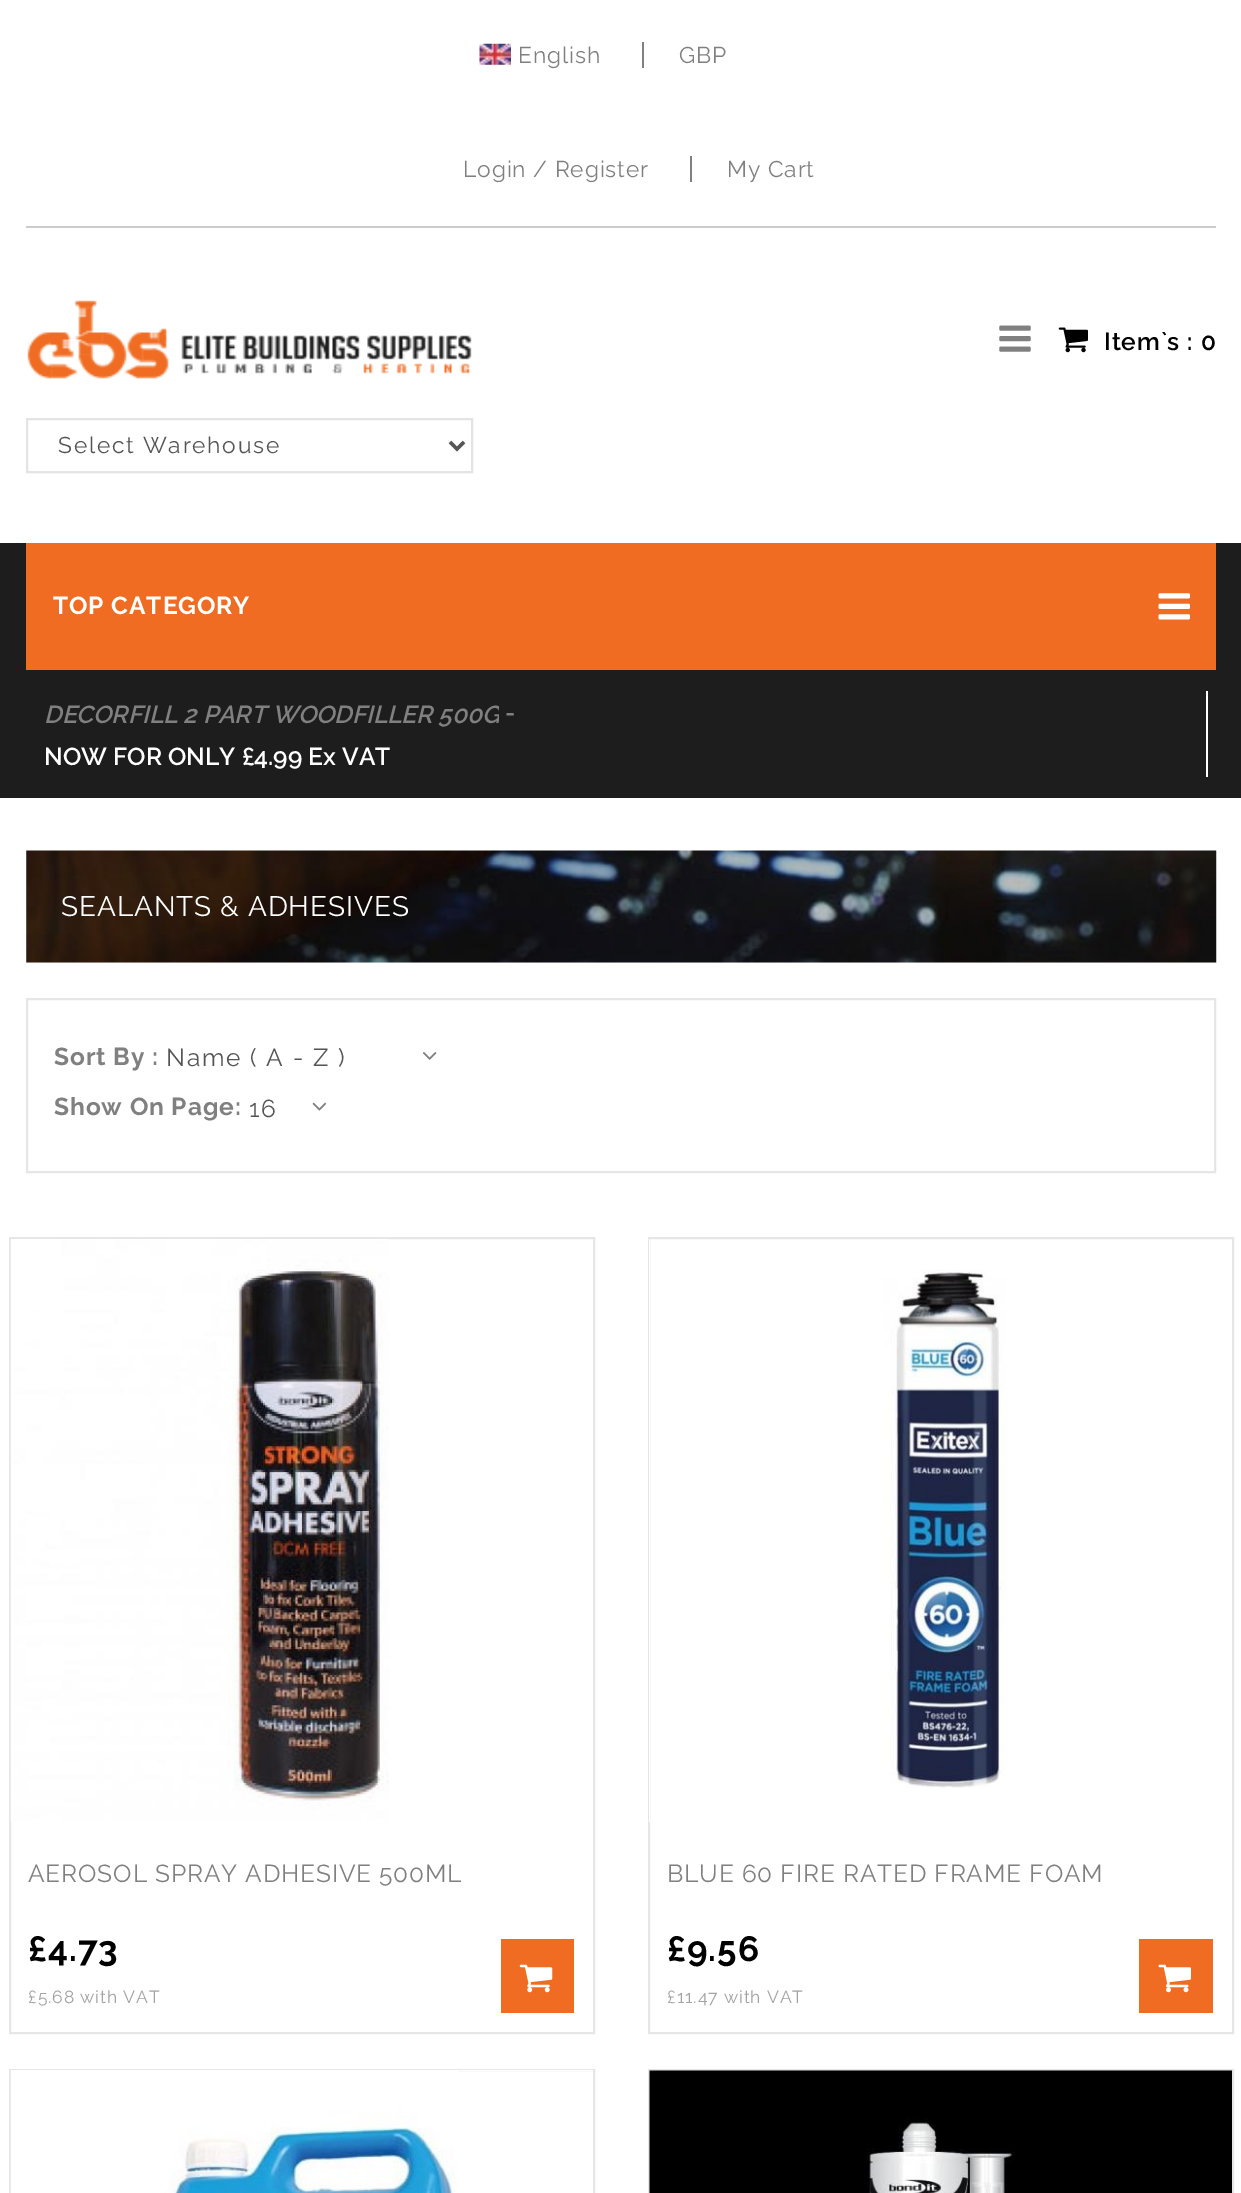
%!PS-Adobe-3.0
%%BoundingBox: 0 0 1241 2193
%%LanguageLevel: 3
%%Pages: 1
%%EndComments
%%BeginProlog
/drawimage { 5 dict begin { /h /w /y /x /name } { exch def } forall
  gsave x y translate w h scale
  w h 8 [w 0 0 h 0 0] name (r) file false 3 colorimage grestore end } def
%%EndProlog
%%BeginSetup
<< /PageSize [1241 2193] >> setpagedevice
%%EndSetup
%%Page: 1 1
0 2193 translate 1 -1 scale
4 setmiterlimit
1 setgray
0 0 1241 2193 rectfill
0.8 setgray
26 226 1190 2 rectfill
(images/1.raw) 479 43 32 22 drawimage
0.502 setgray
642 42 2 26 rectfill
690 156 2 26 rectfill
(images/2.raw) 999 325 32 27 drawimage
(images/3.raw) 1058 327 30 26 drawimage
(images/4.raw) 27 300 445 79 drawimage
0.894 setgray
2 setlinewidth
27 419 445 53 rectstroke
0.333 setgray
3.5 setlinewidth
newpath 450 442 moveto 457 449 lineto 464 442 lineto stroke
0.114 setgray
0 543 1241 255 rectfill
0.937 0.424 0.133 setrgbcolor
26 543 1190 127 rectfill
(images/5.raw) 1158 593 32 27 drawimage
1 setgray
1206 691 2 86 rectfill
0.961 setgray
26 851 1190 112 rectfill
(images/6.raw) 26 850 1191 113 drawimage
0.902 setgray
2 setlinewidth
27 999 1188 173 rectstroke
(images/7.raw) 422 1052 15 8 drawimage
(images/8.raw) 312 1102 15 9 drawimage
10 1238 584 795 rectstroke
(images/9.raw) 10 1239 379 583 drawimage
0.941 0.424 0.133 setrgbcolor
501 1939 73 74 rectfill
(images/10.raw) 519 1964 34 29 drawimage
0.902 setgray
649 1238 584 795 rectstroke
1 setgray
649 1239 1 583 rectfill
(images/11.raw) 883 1270 123 518 drawimage
0.941 0.424 0.133 setrgbcolor
1139 1939 74 74 rectfill
(images/12.raw) 1158 1964 33 29 drawimage
0.902 setgray
10 2070 584 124 rectstroke
1 setgray
11 2070 582 1 rectfill
(images/13.raw) 10 2071 448 122 drawimage
0.902 setgray
649 2070 584 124 rectstroke
1 setgray
649 2070 583 123 rectfill
(images/14.raw) 649 2070 583 123 drawimage
/Raleway-Regular [22.75 0 0 -22.75 0 0] selectfont
0.502 setgray
518 63 moveto 0.9 0 (English) ashow
679 63 moveto 0.9 0 (GBP) ashow
463 177 moveto 0.9 0 (Login / Register) ashow
727 177 moveto 0.9 0 (My Cart) ashow
/Raleway-SemiBold [24.5 0 0 -24.5 0 0] selectfont
0 setgray
1104 350 moveto 0.9 0 (Item`s : 0) ashow
/Raleway-Regular [22.75 0 0 -22.75 0 0] selectfont
0.333 setgray
58 453 moveto 1.75 0 (Select Warehouse) ashow
/Raleway-Bold [24.5 0 0 -24.5 0 0] selectfont
1 setgray
53 614 moveto 0.9 0 (TOP CATEGORY) ashow
gsave
44 693 455 42 rectclip
/Raleway-SemiBoldItalic [24.5 0 0 -24.5 0 0] selectfont
0.502 setgray
44 723 moveto (DECORFILL 2 PART WOODFILLER 500G) show
grestore
/Raleway-SemiBold [24.5 0 0 -24.5 0 0] selectfont
0.502 setgray
505 721 moveto (-) show
1 setgray
44 765 moveto (NOW FOR ONLY £4.99 Ex VAT) show
/Raleway-Regular [28 0 0 -28 0 0] selectfont
61 916 moveto 0.9 0 (SEALANTS & ADHESIVES) ashow
/Raleway-Bold [24.5 0 0 -24.5 0 0] selectfont
0.502 setgray
54 1065 moveto 0.9 0 (Sort By :) ashow
/Raleway-Regular [24.5 0 0 -24.5 0 0] selectfont
0.333 setgray
166 1066 moveto 1.75 0 (Name \( A - Z \)) ashow
/Raleway-Bold [24.5 0 0 -24.5 0 0] selectfont
0.502 setgray
54 1115 moveto 0.9 0 (Show On Page:) ashow
/Raleway-Regular [24.5 0 0 -24.5 0 0] selectfont
0.333 setgray
249 1117 moveto 1.75 0 (16) ashow
0.502 setgray
28 1882 moveto 0.9 0 (AEROSOL SPRAY ADHESIVE 500ML) ashow
/Raleway-Bold [35 0 0 -35 0 0] selectfont
0 setgray
28 1961 moveto 0.9 0 (£4.73) ashow
/Raleway-Regular [17.5 0 0 -17.5 0 0] selectfont
0.635 setgray
28 2003 moveto 0.9 0 (£5.68 with VAT) ashow
/Raleway-Regular [24.5 0 0 -24.5 0 0] selectfont
0.502 setgray
667 1882 moveto 0.9 0 (BLUE 60 FIRE RATED FRAME FOAM) ashow
/Raleway-Bold [35 0 0 -35 0 0] selectfont
0 setgray
667 1961 moveto 0.9 0 (£9.56) ashow
/Raleway-Regular [17.5 0 0 -17.5 0 0] selectfont
0.635 setgray
667 2003 moveto 0.9 0 (£11.47 with VAT) ashow
showpage
%%EOF
